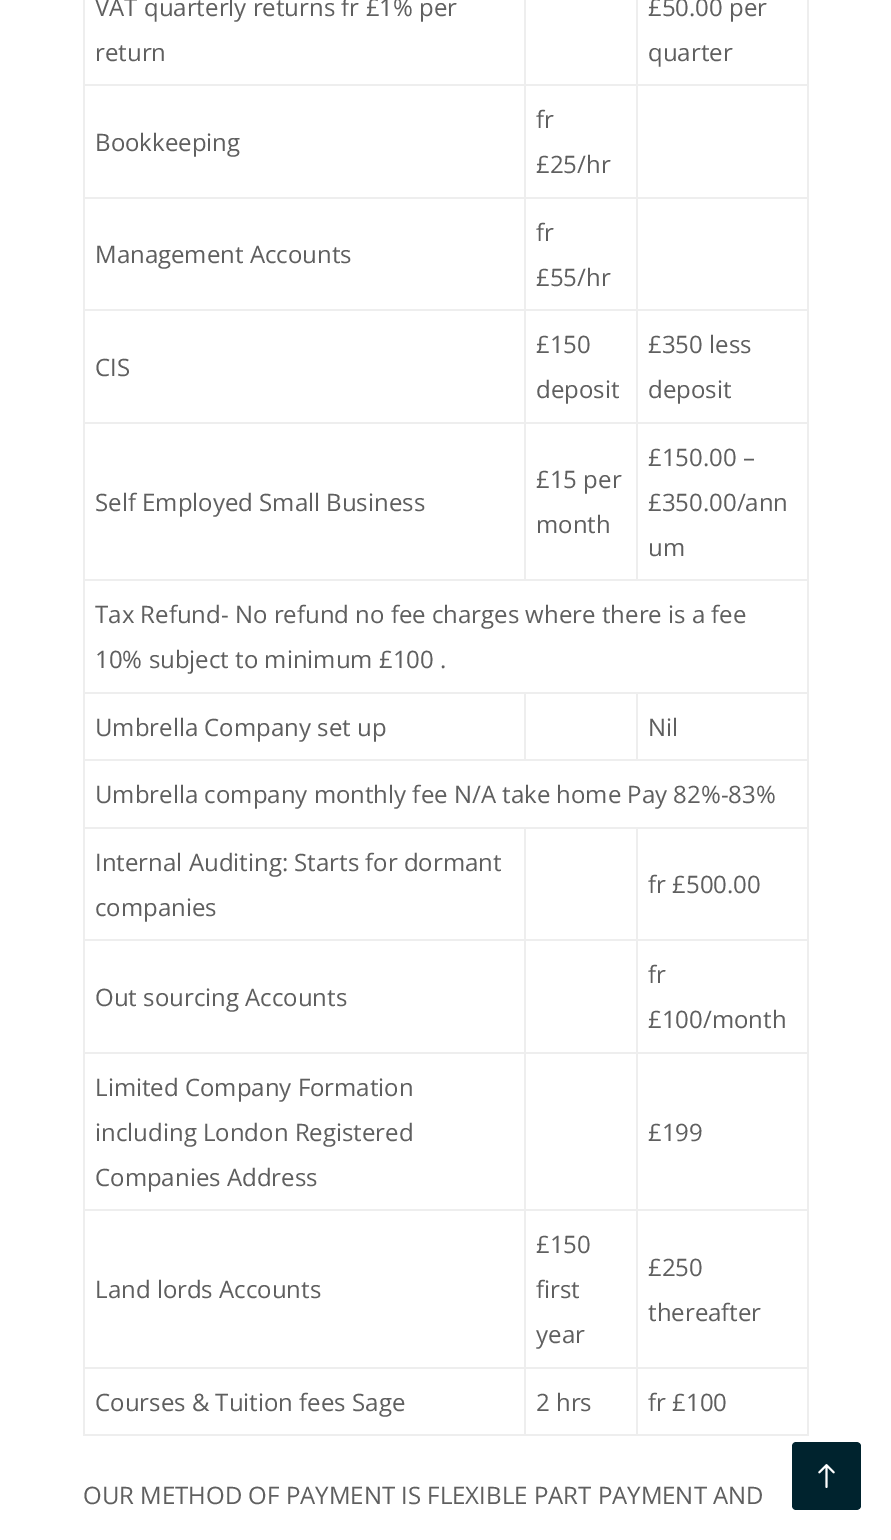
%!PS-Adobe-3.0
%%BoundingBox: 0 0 891 1540
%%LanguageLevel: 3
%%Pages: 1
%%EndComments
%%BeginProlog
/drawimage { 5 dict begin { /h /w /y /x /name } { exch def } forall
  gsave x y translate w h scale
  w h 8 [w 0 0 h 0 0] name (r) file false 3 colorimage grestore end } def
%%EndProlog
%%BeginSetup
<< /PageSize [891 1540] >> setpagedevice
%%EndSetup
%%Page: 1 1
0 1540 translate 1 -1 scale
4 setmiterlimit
1 setgray
0 0 891 1540 rectfill
0.933 setgray
807 0 2 1436 rectfill
83 1434 726 2 rectfill
83 0 2 1436 rectfill
636 84 173 2 rectfill
636 197 173 2 rectfill
636 309 173 2 rectfill
636 422 173 2 rectfill
83 579 726 2 rectfill
636 422 2 159 rectfill
524 422 114 2 rectfill
636 309 2 114 rectfill
524 309 114 2 rectfill
636 197 2 114 rectfill
524 197 114 2 rectfill
636 84 2 114 rectfill
524 84 114 2 rectfill
524 422 2 159 rectfill
83 422 442 2 rectfill
524 309 2 114 rectfill
83 309 442 2 rectfill
524 197 2 114 rectfill
83 197 442 2 rectfill
524 84 2 114 rectfill
83 84 442 2 rectfill
524 0 2 86 rectfill
636 0 2 86 rectfill
636 692 173 2 rectfill
83 759 726 2 rectfill
636 692 2 69 rectfill
524 692 114 2 rectfill
524 692 2 69 rectfill
83 692 442 2 rectfill
636 827 173 2 rectfill
636 939 173 2 rectfill
636 1052 173 2 rectfill
636 1209 173 2 rectfill
636 1367 173 2 rectfill
636 1367 2 69 rectfill
524 1367 114 2 rectfill
636 1209 2 159 rectfill
524 1209 114 2 rectfill
636 1052 2 159 rectfill
524 1052 114 2 rectfill
636 939 2 114 rectfill
524 939 114 2 rectfill
636 827 2 114 rectfill
524 827 114 2 rectfill
524 1367 2 69 rectfill
83 1367 442 2 rectfill
524 1209 2 159 rectfill
83 1209 442 2 rectfill
524 1052 2 159 rectfill
83 1052 442 2 rectfill
524 939 2 114 rectfill
83 939 442 2 rectfill
524 827 2 114 rectfill
83 827 442 2 rectfill
0 0.137 0.18 setrgbcolor
newpath 861 1446 moveto 861 1506 lineto 861 1508 859 1510 856 1510 curveto 796 1510 lineto 794 1510 792 1508 792 1506 curveto 792 1446 lineto 792 1444 794 1442 796 1442 curveto 856 1442 lineto 859 1442 861 1444 861 1446 curveto closepath fill
(images/1.raw) 818 1464 17 24 drawimage
/OpenSans-Regular [24 0 0 -24 0 0] selectfont
0.373 setgray
95 16 moveto (VAT quarterly returns fr £1% per) show
95 61 moveto (return) show
648 16 moveto (£50.00 per) show
648 61 moveto (quarter) show
95 151 moveto (Bookkeeping) show
536 128 moveto (fr) show
536 173 moveto (£25/hr) show
95 263 moveto (Management Accounts) show
536 241 moveto (fr) show
536 286 moveto (£55/hr) show
95 376 moveto (CIS) show
536 353 moveto (£150) show
536 398 moveto (deposit) show
648 353 moveto (£350 less) show
648 398 moveto (deposit) show
95 511 moveto (Self Employed Small Business) show
536 488 moveto (£15 per) show
536 533 moveto (month) show
648 466 moveto (£150.00 –) show
648 511 moveto (£350.00/ann) show
648 556 moveto (um) show
95 623 moveto (Tax Refund- No refund no fee charges where there is a fee) show
95 668 moveto (10% subject to minimum £100 .) show
95 736 moveto (Umbrella Company set up) show
648 736 moveto (Nil) show
95 803 moveto (Umbrella company monthly fee N/A take home Pay 82%-83%) show
95 871 moveto (Internal Auditing: Starts for dormant) show
95 916 moveto (companies) show
648 893 moveto (fr £500.00) show
95 1006 moveto (Out sourcing Accounts) show
648 983 moveto (fr) show
648 1028 moveto (£100/month) show
95 1096 moveto (Limited Company Formation) show
95 1141 moveto (including London Registered) show
95 1186 moveto (Companies Address) show
648 1141 moveto (£199) show
95 1298 moveto (Land lords Accounts) show
536 1253 moveto (£150) show
536 1298 moveto (first) show
536 1343 moveto (year) show
648 1276 moveto (£250) show
648 1321 moveto (thereafter) show
95 1411 moveto (Courses & Tuition fees Sage) show
536 1411 moveto (2 hrs) show
648 1411 moveto (fr £100) show
83 1504 moveto (OUR METHOD OF PAYMENT IS FLEXIBLE PART PAYMENT AND) show
showpage
%%EOF
